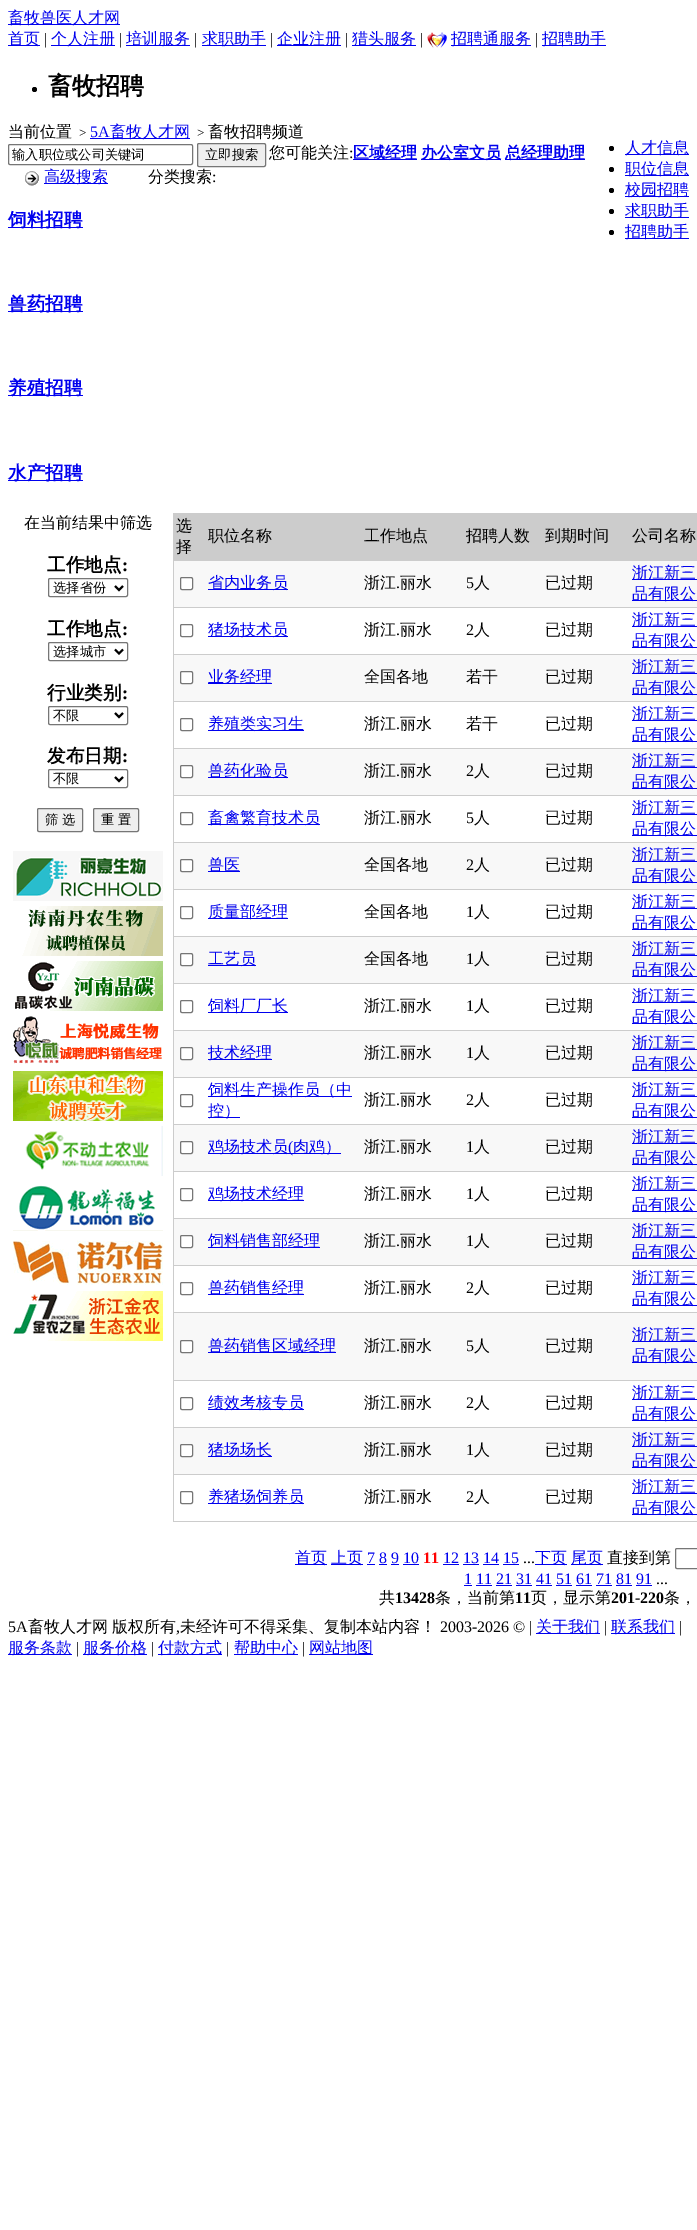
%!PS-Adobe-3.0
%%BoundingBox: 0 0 697 2230
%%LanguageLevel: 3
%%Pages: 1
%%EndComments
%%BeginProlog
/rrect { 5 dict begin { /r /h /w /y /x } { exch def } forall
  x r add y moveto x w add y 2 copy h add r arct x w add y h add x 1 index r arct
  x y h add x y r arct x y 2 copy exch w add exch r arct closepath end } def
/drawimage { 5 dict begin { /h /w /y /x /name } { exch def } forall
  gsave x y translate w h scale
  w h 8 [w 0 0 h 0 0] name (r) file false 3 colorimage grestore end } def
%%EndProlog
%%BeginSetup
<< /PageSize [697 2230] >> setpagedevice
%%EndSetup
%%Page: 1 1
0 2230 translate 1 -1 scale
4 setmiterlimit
1 setgray
0 0 697 2230 rectfill
0 0 0.933 setrgbcolor
8 24 112 1 rectfill
8 45 32 1 rectfill
51 45 64 1 rectfill
126 45 64 1 rectfill
202 45 64 1 rectfill
277 45 64 1 rectfill
352 45 64 1 rectfill
(images/1.raw) 427 32 20 16 drawimage
451 45 80 1 rectfill
542 45 64 1 rectfill
0 setgray
newpath 34.5 89.5 2.5 0 360 arc closepath fill
newpath 611.5 148.5 2.5 0 360 arc closepath fill
0 0 0.933 setrgbcolor
625 154 64 1 rectfill
0 setgray
newpath 611.5 169.5 2.5 0 360 arc closepath fill
0 0 0.933 setrgbcolor
625 175 64 1 rectfill
0 setgray
newpath 611.5 190.5 2.5 0 360 arc closepath fill
0 0 0.933 setrgbcolor
625 196 64 1 rectfill
0 setgray
newpath 611.5 211.5 2.5 0 360 arc closepath fill
0 0 0.933 setrgbcolor
625 217 64 1 rectfill
0 setgray
newpath 611.5 232.5 2.5 0 360 arc closepath fill
0 0 0.933 setrgbcolor
625 238 64 1 rectfill
90 138 100 1 rectfill
353 159 64 1 rectfill
421 159 80 1 rectfill
505 159 80 1 rectfill
0.463 setgray
8.5 144.5 184 20 1.5 rrect stroke
0.937 setgray
197.5 143.5 68 23 1.5 rrect gsave fill grestore
0.463 setgray
stroke
0 0 0.933 setrgbcolor
8 227 75 1 rectfill
8 311 75 1 rectfill
8 395 75 1 rectfill
8 480 75 1 rectfill
(images/2.raw) 25 171 14 15 drawimage
44 183 64 1 rectfill
0.463 setgray
48.5 578.5 79 18 1.5 rrect stroke
0 setgray
2 setlinewidth
newpath 115 586 moveto 119 590 lineto 123 586 lineto stroke
0.463 setgray
1 setlinewidth
48.5 642.5 79 18 1.5 rrect stroke
0 setgray
2 setlinewidth
newpath 115 649.5 moveto 119 653.5 lineto 123 649.5 lineto stroke
0.463 setgray
1 setlinewidth
48.5 706.5 79 18 1.5 rrect stroke
0 setgray
2 setlinewidth
newpath 115 713 moveto 119 717 lineto 123 713 lineto stroke
0.463 setgray
1 setlinewidth
48.5 769.5 79 18 1.5 rrect stroke
0 setgray
2 setlinewidth
newpath 115 777 moveto 119 781 lineto 123 777 lineto stroke
0.937 setgray
37.5 808.5 45 23 1.5 rrect gsave fill grestore
0.463 setgray
1 setlinewidth
stroke
0.937 setgray
93.5 808.5 45 23 1.5 rrect gsave fill grestore
0.463 setgray
stroke
(images/3.raw) 13 851 150 50 drawimage
(images/4.raw) 22 906 141 50 drawimage
(images/5.raw) 15 961 148 50 drawimage
(images/6.raw) 13 1016 149 48 drawimage
(images/7.raw) 13 1071 150 50 drawimage
(images/8.raw) 25 1126 138 50 drawimage
(images/9.raw) 13 1185 150 46 drawimage
(images/10.raw) 13 1240 150 45 drawimage
(images/11.raw) 13 1291 150 50 drawimage
0.8 setgray
173 513 524 1009 rectfill
0.973 setgray
174 561 523 46 rectfill
1 setgray
180.5 577.5 12 12 1.5 rrect gsave fill grestore
0.463 setgray
stroke
0 0 0.933 setrgbcolor
208 589 80 1 rectfill
632 579 65 1 rectfill
632 600 65 1 rectfill
1 setgray
174 608 523 46 rectfill
0.463 setgray
180.5 624.5 12 12 1.5 rrect stroke
0 0 0.933 setrgbcolor
208 636 80 1 rectfill
632 626 65 1 rectfill
632 647 65 1 rectfill
0.973 setgray
174 655 523 46 rectfill
1 setgray
180.5 671.5 12 12 1.5 rrect gsave fill grestore
0.463 setgray
stroke
0 0 0.933 setrgbcolor
208 683 64 1 rectfill
632 673 65 1 rectfill
632 694 65 1 rectfill
1 setgray
174 702 523 46 rectfill
0.463 setgray
180.5 718.5 12 12 1.5 rrect stroke
0 0 0.933 setrgbcolor
208 730 96 1 rectfill
632 720 65 1 rectfill
632 741 65 1 rectfill
0.973 setgray
174 749 523 46 rectfill
1 setgray
180.5 765.5 12 12 1.5 rrect gsave fill grestore
0.463 setgray
stroke
0 0 0.933 setrgbcolor
208 777 80 1 rectfill
632 767 65 1 rectfill
632 788 65 1 rectfill
1 setgray
174 796 523 46 rectfill
0.463 setgray
180.5 812.5 12 12 1.5 rrect stroke
0 0 0.933 setrgbcolor
208 824 112 1 rectfill
632 814 65 1 rectfill
632 835 65 1 rectfill
0.973 setgray
174 843 523 46 rectfill
1 setgray
180.5 859.5 12 12 1.5 rrect gsave fill grestore
0.463 setgray
stroke
0 0 0.933 setrgbcolor
208 871 32 1 rectfill
632 861 65 1 rectfill
632 882 65 1 rectfill
1 setgray
174 890 523 46 rectfill
0.463 setgray
180.5 906.5 12 12 1.5 rrect stroke
0 0 0.933 setrgbcolor
208 918 80 1 rectfill
632 908 65 1 rectfill
632 929 65 1 rectfill
0.973 setgray
174 937 523 46 rectfill
1 setgray
180.5 953.5 12 12 1.5 rrect gsave fill grestore
0.463 setgray
stroke
0 0 0.933 setrgbcolor
208 965 48 1 rectfill
632 955 65 1 rectfill
632 976 65 1 rectfill
1 setgray
174 984 523 46 rectfill
0.463 setgray
180.5 1000.5 12 12 1.5 rrect stroke
0 0 0.933 setrgbcolor
208 1012 80 1 rectfill
632 1002 65 1 rectfill
632 1023 65 1 rectfill
0.973 setgray
174 1031 523 46 rectfill
1 setgray
180.5 1047.5 12 12 1.5 rrect gsave fill grestore
0.463 setgray
stroke
0 0 0.933 setrgbcolor
208 1059 64 1 rectfill
632 1049 65 1 rectfill
632 1070 65 1 rectfill
1 setgray
174 1078 523 46 rectfill
0.463 setgray
180.5 1094.5 12 12 1.5 rrect stroke
0 0 0.933 setrgbcolor
208 1096 144 1 rectfill
208 1117 32 1 rectfill
632 1096 65 1 rectfill
632 1117 65 1 rectfill
0.973 setgray
174 1125 523 46 rectfill
1 setgray
180.5 1141.5 12 12 1.5 rrect gsave fill grestore
0.463 setgray
stroke
0 0 0.933 setrgbcolor
208 1153 133 1 rectfill
632 1143 65 1 rectfill
632 1164 65 1 rectfill
1 setgray
174 1172 523 46 rectfill
0.463 setgray
180.5 1188.5 12 12 1.5 rrect stroke
0 0 0.933 setrgbcolor
208 1200 96 1 rectfill
632 1190 65 1 rectfill
632 1211 65 1 rectfill
0.973 setgray
174 1219 523 46 rectfill
1 setgray
180.5 1235.5 12 12 1.5 rrect gsave fill grestore
0.463 setgray
stroke
0 0 0.933 setrgbcolor
208 1247 112 1 rectfill
632 1237 65 1 rectfill
632 1258 65 1 rectfill
1 setgray
174 1266 523 46 rectfill
0.463 setgray
180.5 1282.5 12 12 1.5 rrect stroke
0 0 0.933 setrgbcolor
208 1294 96 1 rectfill
632 1284 65 1 rectfill
632 1305 65 1 rectfill
0.973 setgray
174 1313 523 67 rectfill
1 setgray
180.5 1340.5 12 12 1.5 rrect gsave fill grestore
0.463 setgray
stroke
0 0 0.933 setrgbcolor
208 1352 128 1 rectfill
632 1341 65 1 rectfill
632 1362 65 1 rectfill
1 setgray
174 1381 523 46 rectfill
0.463 setgray
180.5 1397.5 12 12 1.5 rrect stroke
0 0 0.933 setrgbcolor
208 1409 96 1 rectfill
632 1399 65 1 rectfill
632 1420 65 1 rectfill
0.973 setgray
174 1428 523 46 rectfill
1 setgray
180.5 1444.5 12 12 1.5 rrect gsave fill grestore
0.463 setgray
stroke
0 0 0.933 setrgbcolor
208 1456 64 1 rectfill
632 1446 65 1 rectfill
632 1467 65 1 rectfill
1 setgray
174 1475 523 46 rectfill
0.463 setgray
180.5 1491.5 12 12 1.5 rrect stroke
0 0 0.933 setrgbcolor
208 1503 96 1 rectfill
632 1493 65 1 rectfill
632 1514 65 1 rectfill
295 1564 32 1 rectfill
331 1564 32 1 rectfill
367 1564 8 1 rectfill
443 1564 16 1 rectfill
535 1564 32 1 rectfill
571 1564 32 1 rectfill
0.463 setgray
675.5 1548.5 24 20 1.5 rrect stroke
0 0 0.933 setrgbcolor
379 1564 8 1 rectfill
391 1564 8 1 rectfill
403 1564 16 1 rectfill
463 1564 16 1 rectfill
483 1564 16 1 rectfill
503 1564 16 1 rectfill
464 1585 8 1 rectfill
476 1585 16 1 rectfill
496 1585 16 1 rectfill
516 1585 16 1 rectfill
536 1585 16 1 rectfill
556 1585 16 1 rectfill
576 1585 16 1 rectfill
596 1585 16 1 rectfill
616 1585 16 1 rectfill
636 1585 16 1 rectfill
536 1633 64 1 rectfill
611 1633 64 1 rectfill
8 1654 64 1 rectfill
83 1654 64 1 rectfill
158 1654 64 1 rectfill
234 1654 64 1 rectfill
309 1654 64 1 rectfill
/WenQuanYiZenHei-Medium [16 0 0 -16 0 0] selectfont
8 23 moveto (畜牧兽医人才网) show
8 44 moveto (首页) show
/LiberationSerif-Regular [16 0 0 -16 0 0] selectfont
0 setgray
44 44 moveto (|) show
/WenQuanYiZenHei-Medium [16 0 0 -16 0 0] selectfont
0 0 0.933 setrgbcolor
51 44 moveto (个人注册) show
/LiberationSerif-Regular [16 0 0 -16 0 0] selectfont
0 setgray
119 44 moveto (|) show
/WenQuanYiZenHei-Medium [16 0 0 -16 0 0] selectfont
0 0 0.933 setrgbcolor
126 44 moveto (培训服务) show
/LiberationSerif-Regular [16 0 0 -16 0 0] selectfont
0 setgray
194 44 moveto (|) show
/WenQuanYiZenHei-Medium [16 0 0 -16 0 0] selectfont
0 0 0.933 setrgbcolor
202 44 moveto (求职助手) show
/LiberationSerif-Regular [16 0 0 -16 0 0] selectfont
0 setgray
270 44 moveto (|) show
/WenQuanYiZenHei-Medium [16 0 0 -16 0 0] selectfont
0 0 0.933 setrgbcolor
277 44 moveto (企业注册) show
/LiberationSerif-Regular [16 0 0 -16 0 0] selectfont
0 setgray
345 44 moveto (|) show
/WenQuanYiZenHei-Medium [16 0 0 -16 0 0] selectfont
0 0 0.933 setrgbcolor
352 44 moveto (猎头服务) show
/LiberationSerif-Regular [16 0 0 -16 0 0] selectfont
0 setgray
420 44 moveto (|) show
/WenQuanYiZenHei-Medium [16 0 0 -16 0 0] selectfont
0 0 0.933 setrgbcolor
451 44 moveto (招聘通服务) show
/LiberationSerif-Regular [16 0 0 -16 0 0] selectfont
0 setgray
535 44 moveto (|) show
/WenQuanYiZenHei-Medium [16 0 0 -16 0 0] selectfont
0 0 0.933 setrgbcolor
542 44 moveto (招聘助手) show
/WenQuanYiZenHei-Bold [24 0 0 -24 0 0] selectfont
0 setgray
48 94 moveto (畜牧招聘) show
/WenQuanYiZenHei-Medium [16 0 0 -16 0 0] selectfont
0 0 0.933 setrgbcolor
625 153 moveto (人才信息) show
625 174 moveto (职位信息) show
625 195 moveto (校园招聘) show
625 216 moveto (求职助手) show
625 237 moveto (招聘助手) show
0 setgray
8 137 moveto (当前位置) show
/LiberationSerif-Regular [13.25 0 0 -13.25 0 0] selectfont
79 137 moveto (>) show
/LiberationSerif-Regular [16 0 0 -16 0 0] selectfont
0 0 0.933 setrgbcolor
90 137 moveto (5A) show
/WenQuanYiZenHei-Medium [16 0 0 -16 0 0] selectfont
110 137 moveto (畜牧人才网) show
/LiberationSerif-Regular [13.25 0 0 -13.25 0 0] selectfont
0 setgray
197 137 moveto (>) show
/WenQuanYiZenHei-Medium [16 0 0 -16 0 0] selectfont
208 137 moveto (畜牧招聘频道) show
269 158 moveto (您可能关注) show
/LiberationSerif-Regular [16 0 0 -16 0 0] selectfont
349 158 moveto (:) show
/WenQuanYiZenHei-Bold [16 0 0 -16 0 0] selectfont
0 0 0.933 setrgbcolor
353 158 moveto (区域经理) show
421 158 moveto (办公室文员) show
505 158 moveto (总经理助理) show
/WenQuanYiZenHei-Medium [13.25 0 0 -13.25 0 0] selectfont
0 setgray
12 159 moveto (输入职位或公司关键词) show
205 159 moveto (立即搜索) show
/WenQuanYiZenHei-Medium [16 0 0 -16 0 0] selectfont
148 182 moveto (分类搜索) show
/LiberationSerif-Regular [16 0 0 -16 0 0] selectfont
212 182 moveto (:) show
/WenQuanYiZenHei-Bold [18.5 0 0 -18.5 0 0] selectfont
0 0 0.933 setrgbcolor
8 226 moveto (饲料招聘) show
8 310 moveto (兽药招聘) show
8 394 moveto (养殖招聘) show
8 479 moveto (水产招聘) show
/WenQuanYiZenHei-Medium [16 0 0 -16 0 0] selectfont
44 182 moveto (高级搜索) show
0 setgray
24 528 moveto (在当前结果中筛选) show
/WenQuanYiZenHei-Bold [18.5 0 0 -18.5 0 0] selectfont
47 571 moveto (工作地点) show
/LiberationSerif-Bold [18.5 0 0 -18.5 0 0] selectfont
122 571 moveto (:) show
/WenQuanYiZenHei-Medium [13.25 0 0 -13.25 0 0] selectfont
53 592 moveto (选择省份) show
/WenQuanYiZenHei-Bold [18.5 0 0 -18.5 0 0] selectfont
47 635 moveto (工作地点) show
/LiberationSerif-Bold [18.5 0 0 -18.5 0 0] selectfont
122 635 moveto (:) show
/WenQuanYiZenHei-Medium [13.25 0 0 -13.25 0 0] selectfont
53 656 moveto (选择城市) show
/WenQuanYiZenHei-Bold [18.5 0 0 -18.5 0 0] selectfont
47 699 moveto (行业类别) show
/LiberationSerif-Bold [18.5 0 0 -18.5 0 0] selectfont
122 699 moveto (:) show
/WenQuanYiZenHei-Medium [13.25 0 0 -13.25 0 0] selectfont
53 720 moveto (不限) show
/WenQuanYiZenHei-Bold [18.5 0 0 -18.5 0 0] selectfont
47 762 moveto (发布日期) show
/LiberationSerif-Bold [18.5 0 0 -18.5 0 0] selectfont
122 762 moveto (:) show
/WenQuanYiZenHei-Medium [13.25 0 0 -13.25 0 0] selectfont
53 783 moveto (不限) show
45 824 moveto (筛 选) show
101 824 moveto (重 置) show
/WenQuanYiZenHei-Medium [16 0 0 -16 0 0] selectfont
176 531 moveto (选) show
176 552 moveto (择) show
208 541 moveto (职位名称) show
364 541 moveto (工作地点) show
466 541 moveto (招聘人数) show
545 541 moveto (到期时间) show
632 541 moveto (公司名称) show
0 0 0.933 setrgbcolor
208 588 moveto (省内业务员) show
0 setgray
364 588 moveto (浙江) show
/LiberationSerif-Regular [16 0 0 -16 0 0] selectfont
396 588 moveto (.) show
/WenQuanYiZenHei-Medium [16 0 0 -16 0 0] selectfont
400 588 moveto (丽水) show
/LiberationSerif-Regular [16 0 0 -16 0 0] selectfont
466 588 moveto (5) show
/WenQuanYiZenHei-Medium [16 0 0 -16 0 0] selectfont
474 588 moveto (人) show
545 588 moveto (已过期) show
0 0 0.933 setrgbcolor
632 578 moveto (浙江新三) show
632 599 moveto (品有限公) show
208 635 moveto (猪场技术员) show
0 setgray
364 635 moveto (浙江) show
/LiberationSerif-Regular [16 0 0 -16 0 0] selectfont
396 635 moveto (.) show
/WenQuanYiZenHei-Medium [16 0 0 -16 0 0] selectfont
400 635 moveto (丽水) show
/LiberationSerif-Regular [16 0 0 -16 0 0] selectfont
466 635 moveto (2) show
/WenQuanYiZenHei-Medium [16 0 0 -16 0 0] selectfont
474 635 moveto (人) show
545 635 moveto (已过期) show
0 0 0.933 setrgbcolor
632 625 moveto (浙江新三) show
632 646 moveto (品有限公) show
208 682 moveto (业务经理) show
0 setgray
364 682 moveto (全国各地) show
466 682 moveto (若干) show
545 682 moveto (已过期) show
0 0 0.933 setrgbcolor
632 672 moveto (浙江新三) show
632 693 moveto (品有限公) show
208 729 moveto (养殖类实习生) show
0 setgray
364 729 moveto (浙江) show
/LiberationSerif-Regular [16 0 0 -16 0 0] selectfont
396 729 moveto (.) show
/WenQuanYiZenHei-Medium [16 0 0 -16 0 0] selectfont
400 729 moveto (丽水) show
466 729 moveto (若干) show
545 729 moveto (已过期) show
0 0 0.933 setrgbcolor
632 719 moveto (浙江新三) show
632 740 moveto (品有限公) show
208 776 moveto (兽药化验员) show
0 setgray
364 776 moveto (浙江) show
/LiberationSerif-Regular [16 0 0 -16 0 0] selectfont
396 776 moveto (.) show
/WenQuanYiZenHei-Medium [16 0 0 -16 0 0] selectfont
400 776 moveto (丽水) show
/LiberationSerif-Regular [16 0 0 -16 0 0] selectfont
466 776 moveto (2) show
/WenQuanYiZenHei-Medium [16 0 0 -16 0 0] selectfont
474 776 moveto (人) show
545 776 moveto (已过期) show
0 0 0.933 setrgbcolor
632 766 moveto (浙江新三) show
632 787 moveto (品有限公) show
208 823 moveto (畜禽繁育技术员) show
0 setgray
364 823 moveto (浙江) show
/LiberationSerif-Regular [16 0 0 -16 0 0] selectfont
396 823 moveto (.) show
/WenQuanYiZenHei-Medium [16 0 0 -16 0 0] selectfont
400 823 moveto (丽水) show
/LiberationSerif-Regular [16 0 0 -16 0 0] selectfont
466 823 moveto (5) show
/WenQuanYiZenHei-Medium [16 0 0 -16 0 0] selectfont
474 823 moveto (人) show
545 823 moveto (已过期) show
0 0 0.933 setrgbcolor
632 813 moveto (浙江新三) show
632 834 moveto (品有限公) show
208 870 moveto (兽医) show
0 setgray
364 870 moveto (全国各地) show
/LiberationSerif-Regular [16 0 0 -16 0 0] selectfont
466 870 moveto (2) show
/WenQuanYiZenHei-Medium [16 0 0 -16 0 0] selectfont
474 870 moveto (人) show
545 870 moveto (已过期) show
0 0 0.933 setrgbcolor
632 860 moveto (浙江新三) show
632 881 moveto (品有限公) show
208 917 moveto (质量部经理) show
0 setgray
364 917 moveto (全国各地) show
/LiberationSerif-Regular [16 0 0 -16 0 0] selectfont
466 917 moveto (1) show
/WenQuanYiZenHei-Medium [16 0 0 -16 0 0] selectfont
474 917 moveto (人) show
545 917 moveto (已过期) show
0 0 0.933 setrgbcolor
632 907 moveto (浙江新三) show
632 928 moveto (品有限公) show
208 964 moveto (工艺员) show
0 setgray
364 964 moveto (全国各地) show
/LiberationSerif-Regular [16 0 0 -16 0 0] selectfont
466 964 moveto (1) show
/WenQuanYiZenHei-Medium [16 0 0 -16 0 0] selectfont
474 964 moveto (人) show
545 964 moveto (已过期) show
0 0 0.933 setrgbcolor
632 954 moveto (浙江新三) show
632 975 moveto (品有限公) show
208 1011 moveto (饲料厂厂长) show
0 setgray
364 1011 moveto (浙江) show
/LiberationSerif-Regular [16 0 0 -16 0 0] selectfont
396 1011 moveto (.) show
/WenQuanYiZenHei-Medium [16 0 0 -16 0 0] selectfont
400 1011 moveto (丽水) show
/LiberationSerif-Regular [16 0 0 -16 0 0] selectfont
466 1011 moveto (1) show
/WenQuanYiZenHei-Medium [16 0 0 -16 0 0] selectfont
474 1011 moveto (人) show
545 1011 moveto (已过期) show
0 0 0.933 setrgbcolor
632 1001 moveto (浙江新三) show
632 1022 moveto (品有限公) show
208 1058 moveto (技术经理) show
0 setgray
364 1058 moveto (浙江) show
/LiberationSerif-Regular [16 0 0 -16 0 0] selectfont
396 1058 moveto (.) show
/WenQuanYiZenHei-Medium [16 0 0 -16 0 0] selectfont
400 1058 moveto (丽水) show
/LiberationSerif-Regular [16 0 0 -16 0 0] selectfont
466 1058 moveto (1) show
/WenQuanYiZenHei-Medium [16 0 0 -16 0 0] selectfont
474 1058 moveto (人) show
545 1058 moveto (已过期) show
0 0 0.933 setrgbcolor
632 1048 moveto (浙江新三) show
632 1069 moveto (品有限公) show
208 1095 moveto (饲料生产操作员（中) show
208 1116 moveto (控）) show
0 setgray
364 1105 moveto (浙江) show
/LiberationSerif-Regular [16 0 0 -16 0 0] selectfont
396 1105 moveto (.) show
/WenQuanYiZenHei-Medium [16 0 0 -16 0 0] selectfont
400 1105 moveto (丽水) show
/LiberationSerif-Regular [16 0 0 -16 0 0] selectfont
466 1105 moveto (2) show
/WenQuanYiZenHei-Medium [16 0 0 -16 0 0] selectfont
474 1105 moveto (人) show
545 1105 moveto (已过期) show
0 0 0.933 setrgbcolor
632 1095 moveto (浙江新三) show
632 1116 moveto (品有限公) show
208 1152 moveto (鸡场技术员) show
/LiberationSerif-Regular [16 0 0 -16 0 0] selectfont
288 1152 moveto (\() show
/WenQuanYiZenHei-Medium [16 0 0 -16 0 0] selectfont
293 1152 moveto (肉鸡）) show
0 setgray
364 1152 moveto (浙江) show
/LiberationSerif-Regular [16 0 0 -16 0 0] selectfont
396 1152 moveto (.) show
/WenQuanYiZenHei-Medium [16 0 0 -16 0 0] selectfont
400 1152 moveto (丽水) show
/LiberationSerif-Regular [16 0 0 -16 0 0] selectfont
466 1152 moveto (1) show
/WenQuanYiZenHei-Medium [16 0 0 -16 0 0] selectfont
474 1152 moveto (人) show
545 1152 moveto (已过期) show
0 0 0.933 setrgbcolor
632 1142 moveto (浙江新三) show
632 1163 moveto (品有限公) show
208 1199 moveto (鸡场技术经理) show
0 setgray
364 1199 moveto (浙江) show
/LiberationSerif-Regular [16 0 0 -16 0 0] selectfont
396 1199 moveto (.) show
/WenQuanYiZenHei-Medium [16 0 0 -16 0 0] selectfont
400 1199 moveto (丽水) show
/LiberationSerif-Regular [16 0 0 -16 0 0] selectfont
466 1199 moveto (1) show
/WenQuanYiZenHei-Medium [16 0 0 -16 0 0] selectfont
474 1199 moveto (人) show
545 1199 moveto (已过期) show
0 0 0.933 setrgbcolor
632 1189 moveto (浙江新三) show
632 1210 moveto (品有限公) show
208 1246 moveto (饲料销售部经理) show
0 setgray
364 1246 moveto (浙江) show
/LiberationSerif-Regular [16 0 0 -16 0 0] selectfont
396 1246 moveto (.) show
/WenQuanYiZenHei-Medium [16 0 0 -16 0 0] selectfont
400 1246 moveto (丽水) show
/LiberationSerif-Regular [16 0 0 -16 0 0] selectfont
466 1246 moveto (1) show
/WenQuanYiZenHei-Medium [16 0 0 -16 0 0] selectfont
474 1246 moveto (人) show
545 1246 moveto (已过期) show
0 0 0.933 setrgbcolor
632 1236 moveto (浙江新三) show
632 1257 moveto (品有限公) show
208 1293 moveto (兽药销售经理) show
0 setgray
364 1293 moveto (浙江) show
/LiberationSerif-Regular [16 0 0 -16 0 0] selectfont
396 1293 moveto (.) show
/WenQuanYiZenHei-Medium [16 0 0 -16 0 0] selectfont
400 1293 moveto (丽水) show
/LiberationSerif-Regular [16 0 0 -16 0 0] selectfont
466 1293 moveto (2) show
/WenQuanYiZenHei-Medium [16 0 0 -16 0 0] selectfont
474 1293 moveto (人) show
545 1293 moveto (已过期) show
0 0 0.933 setrgbcolor
632 1283 moveto (浙江新三) show
632 1304 moveto (品有限公) show
208 1351 moveto (兽药销售区域经理) show
0 setgray
364 1351 moveto (浙江) show
/LiberationSerif-Regular [16 0 0 -16 0 0] selectfont
396 1351 moveto (.) show
/WenQuanYiZenHei-Medium [16 0 0 -16 0 0] selectfont
400 1351 moveto (丽水) show
/LiberationSerif-Regular [16 0 0 -16 0 0] selectfont
466 1351 moveto (5) show
/WenQuanYiZenHei-Medium [16 0 0 -16 0 0] selectfont
474 1351 moveto (人) show
545 1351 moveto (已过期) show
0 0 0.933 setrgbcolor
632 1340 moveto (浙江新三) show
632 1361 moveto (品有限公) show
208 1408 moveto (绩效考核专员) show
0 setgray
364 1408 moveto (浙江) show
/LiberationSerif-Regular [16 0 0 -16 0 0] selectfont
396 1408 moveto (.) show
/WenQuanYiZenHei-Medium [16 0 0 -16 0 0] selectfont
400 1408 moveto (丽水) show
/LiberationSerif-Regular [16 0 0 -16 0 0] selectfont
466 1408 moveto (2) show
/WenQuanYiZenHei-Medium [16 0 0 -16 0 0] selectfont
474 1408 moveto (人) show
545 1408 moveto (已过期) show
0 0 0.933 setrgbcolor
632 1398 moveto (浙江新三) show
632 1419 moveto (品有限公) show
208 1455 moveto (猪场场长) show
0 setgray
364 1455 moveto (浙江) show
/LiberationSerif-Regular [16 0 0 -16 0 0] selectfont
396 1455 moveto (.) show
/WenQuanYiZenHei-Medium [16 0 0 -16 0 0] selectfont
400 1455 moveto (丽水) show
/LiberationSerif-Regular [16 0 0 -16 0 0] selectfont
466 1455 moveto (1) show
/WenQuanYiZenHei-Medium [16 0 0 -16 0 0] selectfont
474 1455 moveto (人) show
545 1455 moveto (已过期) show
0 0 0.933 setrgbcolor
632 1445 moveto (浙江新三) show
632 1466 moveto (品有限公) show
208 1502 moveto (养猪场饲养员) show
0 setgray
364 1502 moveto (浙江) show
/LiberationSerif-Regular [16 0 0 -16 0 0] selectfont
396 1502 moveto (.) show
/WenQuanYiZenHei-Medium [16 0 0 -16 0 0] selectfont
400 1502 moveto (丽水) show
/LiberationSerif-Regular [16 0 0 -16 0 0] selectfont
466 1502 moveto (2) show
/WenQuanYiZenHei-Medium [16 0 0 -16 0 0] selectfont
474 1502 moveto (人) show
545 1502 moveto (已过期) show
0 0 0.933 setrgbcolor
632 1492 moveto (浙江新三) show
632 1513 moveto (品有限公) show
295 1563 moveto (首页) show
331 1563 moveto (上页) show
/LiberationSerif-Regular [16 0 0 -16 0 0] selectfont
367 1563 moveto (7 8 9 10) show
/LiberationSerif-Bold [16 0 0 -16 0 0] selectfont
1 0 0 setrgbcolor
423 1563 moveto (11) show
/LiberationSerif-Regular [16 0 0 -16 0 0] selectfont
0 0 0.933 setrgbcolor
443 1563 moveto (12 13 14 15) show
0 setgray
523 1563 moveto (...) show
/WenQuanYiZenHei-Medium [16 0 0 -16 0 0] selectfont
0 0 0.933 setrgbcolor
535 1563 moveto (下页) show
571 1563 moveto (尾页) show
0 setgray
607 1563 moveto (直接到第) show
/LiberationSerif-Regular [16 0 0 -16 0 0] selectfont
0 0 0.933 setrgbcolor
464 1584 moveto (1 11 21 31 41 51 61 71 81 91) show
0 setgray
656 1584 moveto (...) show
/WenQuanYiZenHei-Medium [16 0 0 -16 0 0] selectfont
379 1603 moveto (共) show
/LiberationSerif-Bold [16 0 0 -16 0 0] selectfont
395 1603 moveto (13428) show
/WenQuanYiZenHei-Medium [16 0 0 -16 0 0] selectfont
435 1603 moveto (条，当前第) show
/LiberationSerif-Bold [16 0 0 -16 0 0] selectfont
515 1603 moveto (11) show
/WenQuanYiZenHei-Medium [16 0 0 -16 0 0] selectfont
531 1603 moveto (页，显示第) show
/LiberationSerif-Bold [16 0 0 -16 0 0] selectfont
611 1603 moveto (201) show
/LiberationSerif-Regular [16 0 0 -16 0 0] selectfont
635 1603 moveto (-) show
/LiberationSerif-Bold [16 0 0 -16 0 0] selectfont
640 1603 moveto (220) show
/WenQuanYiZenHei-Medium [16 0 0 -16 0 0] selectfont
664 1603 moveto (条，) show
/LiberationSerif-Regular [16 0 0 -16 0 0] selectfont
8 1632 moveto (5A) show
/WenQuanYiZenHei-Medium [16 0 0 -16 0 0] selectfont
28 1632 moveto (畜牧人才网) show
112 1632 moveto (版权所有) show
/LiberationSerif-Regular [16 0 0 -16 0 0] selectfont
176 1632 moveto (,) show
/WenQuanYiZenHei-Medium [16 0 0 -16 0 0] selectfont
180 1632 moveto (未经许可不得采集、复制本站内容！) show
/LiberationSerif-Regular [16 0 0 -16 0 0] selectfont
440 1632 moveto (2003-2026 © |) show
/WenQuanYiZenHei-Medium [16 0 0 -16 0 0] selectfont
0 0 0.933 setrgbcolor
536 1632 moveto (关于我们) show
/LiberationSerif-Regular [16 0 0 -16 0 0] selectfont
0 setgray
604 1632 moveto (|) show
/WenQuanYiZenHei-Medium [16 0 0 -16 0 0] selectfont
0 0 0.933 setrgbcolor
611 1632 moveto (联系我们) show
/LiberationSerif-Regular [16 0 0 -16 0 0] selectfont
0 setgray
679 1632 moveto (|) show
/WenQuanYiZenHei-Medium [16 0 0 -16 0 0] selectfont
0 0 0.933 setrgbcolor
8 1653 moveto (服务条款) show
/LiberationSerif-Regular [16 0 0 -16 0 0] selectfont
0 setgray
76 1653 moveto (|) show
/WenQuanYiZenHei-Medium [16 0 0 -16 0 0] selectfont
0 0 0.933 setrgbcolor
83 1653 moveto (服务价格) show
/LiberationSerif-Regular [16 0 0 -16 0 0] selectfont
0 setgray
151 1653 moveto (|) show
/WenQuanYiZenHei-Medium [16 0 0 -16 0 0] selectfont
0 0 0.933 setrgbcolor
158 1653 moveto (付款方式) show
/LiberationSerif-Regular [16 0 0 -16 0 0] selectfont
0 setgray
226 1653 moveto (|) show
/WenQuanYiZenHei-Medium [16 0 0 -16 0 0] selectfont
0 0 0.933 setrgbcolor
234 1653 moveto (帮助中心) show
/LiberationSerif-Regular [16 0 0 -16 0 0] selectfont
0 setgray
302 1653 moveto (|) show
/WenQuanYiZenHei-Medium [16 0 0 -16 0 0] selectfont
0 0 0.933 setrgbcolor
309 1653 moveto (网站地图) show
showpage
%%EOF
